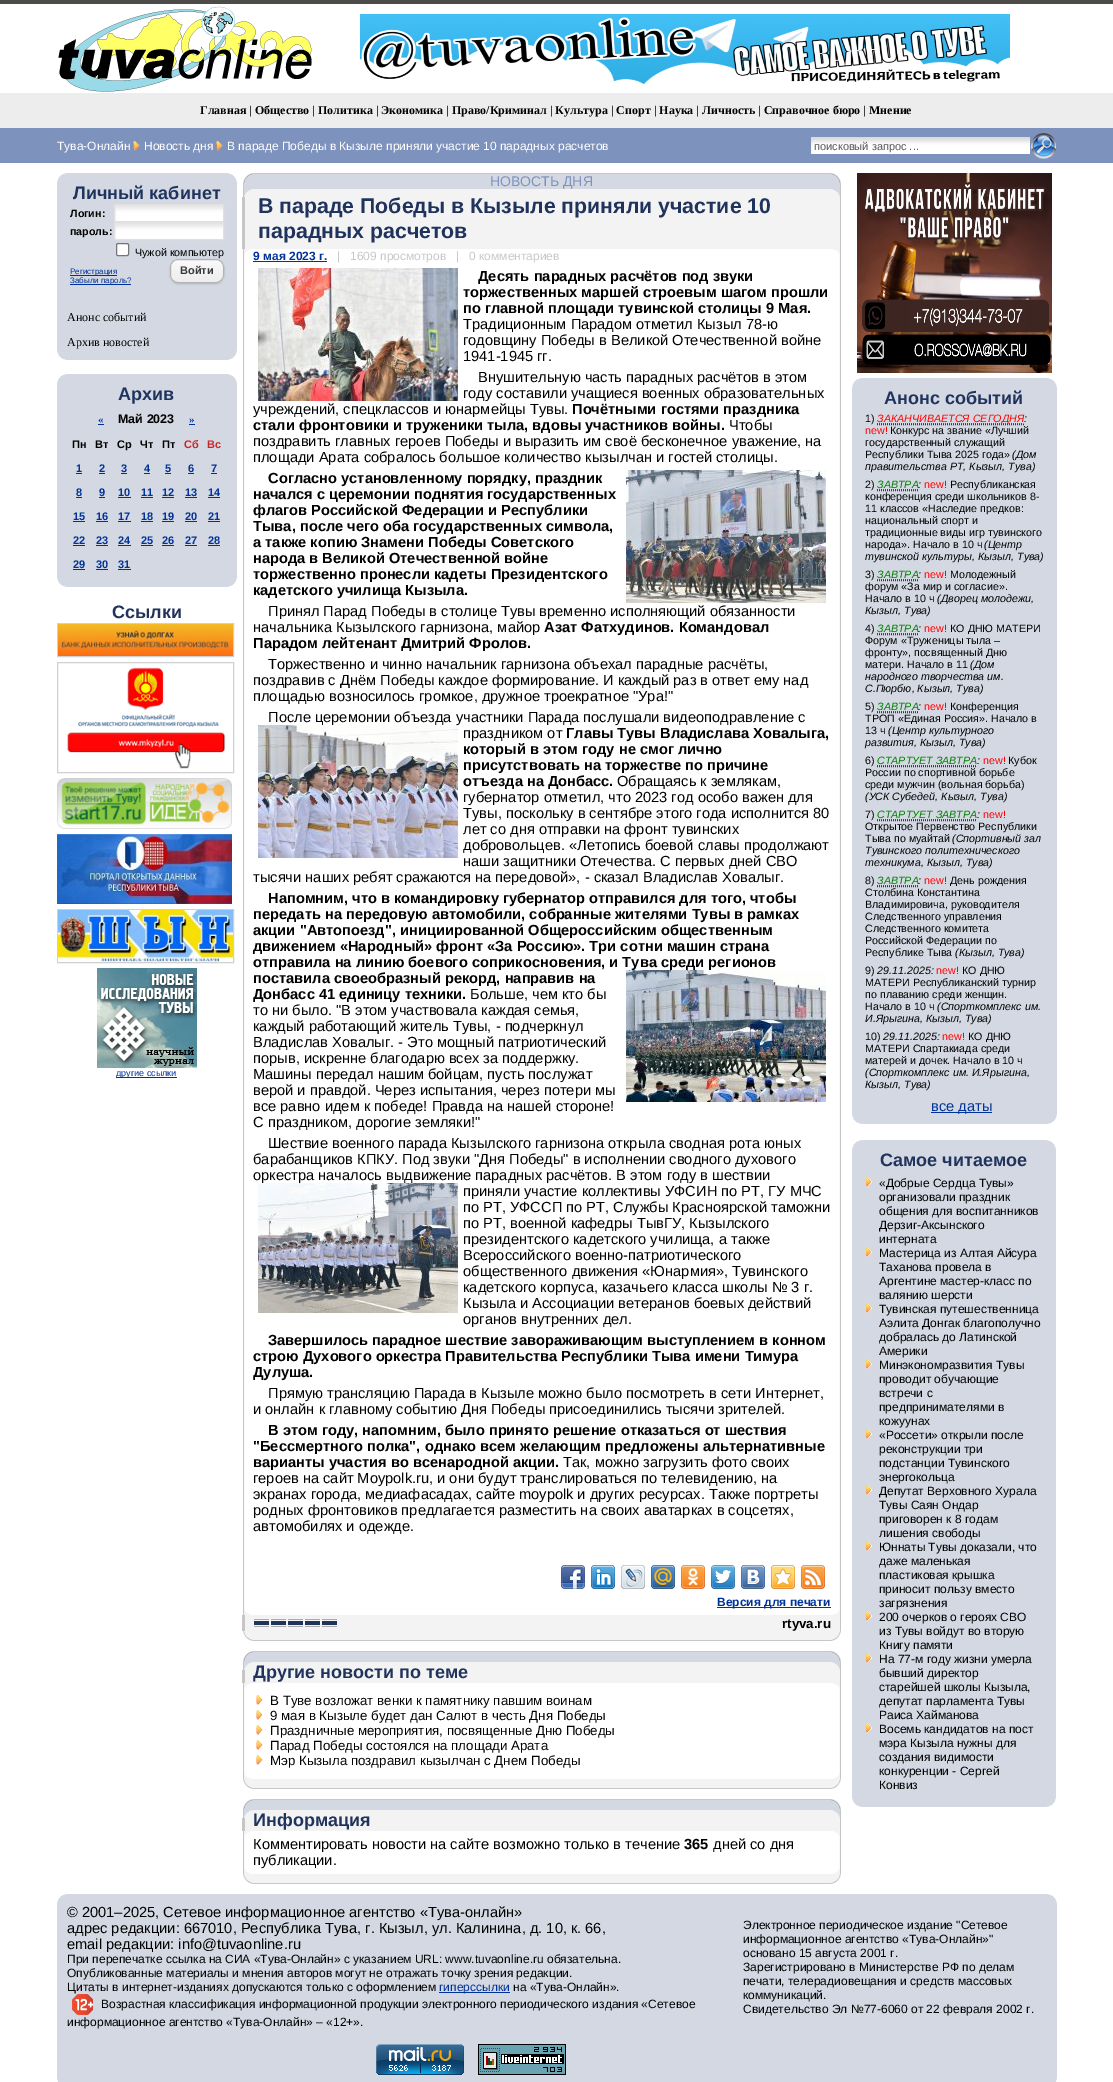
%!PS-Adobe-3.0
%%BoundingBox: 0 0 1113 2082
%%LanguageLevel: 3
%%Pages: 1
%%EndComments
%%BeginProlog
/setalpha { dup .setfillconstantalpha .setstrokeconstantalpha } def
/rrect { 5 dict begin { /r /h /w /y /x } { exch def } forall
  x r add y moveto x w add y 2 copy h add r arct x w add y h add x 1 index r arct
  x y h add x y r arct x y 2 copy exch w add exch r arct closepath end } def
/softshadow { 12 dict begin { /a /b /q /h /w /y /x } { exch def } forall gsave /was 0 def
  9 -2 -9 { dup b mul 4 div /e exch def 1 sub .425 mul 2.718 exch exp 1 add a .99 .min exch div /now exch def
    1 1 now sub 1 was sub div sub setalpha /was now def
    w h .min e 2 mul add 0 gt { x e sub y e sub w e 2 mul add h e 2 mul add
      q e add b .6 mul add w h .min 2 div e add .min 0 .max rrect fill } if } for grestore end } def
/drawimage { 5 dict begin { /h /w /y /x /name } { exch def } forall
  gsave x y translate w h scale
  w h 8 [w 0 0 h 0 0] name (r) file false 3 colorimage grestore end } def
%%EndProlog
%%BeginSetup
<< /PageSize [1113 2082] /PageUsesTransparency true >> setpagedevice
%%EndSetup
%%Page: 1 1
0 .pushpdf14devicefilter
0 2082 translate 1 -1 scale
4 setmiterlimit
1 setgray
0 0 1113 2082 rectfill
0.298 0.294 0.278 setrgbcolor
0 0 1113 4 rectfill
(images/1.raw) 58 6 254 86 drawimage
(images/2.raw) 360 14 650 70 drawimage
0.929 setgray
0 93 1113 35 rectfill
0.49 0.573 0.741 setrgbcolor
0 128 1113 35 rectfill
(images/3.raw) 133 141 7 10 drawimage
(images/3.raw) 216 141 7 10 drawimage
(images/4.raw) 811 137 219 17 drawimage
(images/5.raw) 1031 133 25 26 drawimage
0.831 0.847 0.886 setrgbcolor
57 173 180 187 rectfill
(images/6.raw) 57 173 9 9 drawimage
(images/7.raw) 228 173 9 9 drawimage
(images/8.raw) 115 205 108 16 drawimage
0.878 setgray
114.5 204.5 109 17 rectstroke
(images/8.raw) 115 223 108 16 drawimage
114.5 222.5 109 17 rectstroke
1 setgray
116.5 243.5 12 12 1.5 rrect gsave fill grestore
0.463 setgray
stroke
0 0.2 0.6 setrgbcolor
70 275 47 1 rectfill
70 284 61 1 rectfill
0 setgray
173 263 48 18 5 2 1 softshadow
(images/9.raw) 170 259 54 23 drawimage
0.702 setgray
170.5 259.5 53 23 7.5 rrect stroke
(images/10.raw) 57 351 9 9 drawimage
(images/11.raw) 228 351 9 9 drawimage
0.831 0.847 0.886 setrgbcolor
57 374 180 213 rectfill
(images/6.raw) 57 374 9 9 drawimage
(images/7.raw) 228 374 9 9 drawimage
0 0.2 0.6 setrgbcolor
98 424 6 1 rectfill
189 424 6 1 rectfill
76 473 6 1 rectfill
99 473 6 1 rectfill
121 473 6 1 rectfill
144 473 6 1 rectfill
165 473 6 1 rectfill
188 473 6 1 rectfill
211 473 6 1 rectfill
76 497 6 1 rectfill
99 497 6 1 rectfill
118 497 13 1 rectfill
141 497 12 1 rectfill
162 497 12 1 rectfill
185 497 12 1 rectfill
208 497 12 1 rectfill
73 521 12 1 rectfill
96 521 12 1 rectfill
118 521 13 1 rectfill
141 521 12 1 rectfill
162 521 12 1 rectfill
185 521 12 1 rectfill
208 521 12 1 rectfill
73 545 12 1 rectfill
96 545 12 1 rectfill
118 545 13 1 rectfill
141 545 12 1 rectfill
162 545 12 1 rectfill
185 545 12 1 rectfill
208 545 12 1 rectfill
73 569 12 1 rectfill
96 569 12 1 rectfill
118 569 13 1 rectfill
(images/10.raw) 57 578 9 9 drawimage
(images/11.raw) 228 578 9 9 drawimage
0.816 setgray
57.5 623.5 176 33 rectstroke
(images/12.raw) 58 624 175 32 drawimage
57.5 662.5 176 110 rectstroke
(images/13.raw) 67 667 159 102 drawimage
(images/14.raw) 57 778 175 51 drawimage
(images/15.raw) 57 834 175 70 drawimage
57.5 909.5 176 53 rectstroke
(images/16.raw) 58 910 175 52 drawimage
(images/17.raw) 97 968 100 100 drawimage
0 0.2 0.6 setrgbcolor
116 1077 61 1 rectfill
0.831 0.847 0.886 setrgbcolor
244 184 9 5 rectfill
(images/18.raw) 242 173 2 16 drawimage
(images/19.raw) 243 173 10 11 drawimage
253 174 578 15 rectfill
0.784 setgray
253 173 578 1 rectfill
0.831 0.847 0.886 setrgbcolor
831 184 9 5 rectfill
(images/20.raw) 840 173 2 16 drawimage
(images/21.raw) 831 173 10 11 drawimage
0.953 setgray
245 197 8 52 rectfill
0.776 setgray
242 189 3 60 rectfill
(images/22.raw) 242 189 11 8 drawimage
0.953 setgray
253 189 578 60 rectfill
831 197 9 52 rectfill
(images/23.raw) 840 189 2 60 drawimage
(images/24.raw) 831 189 9 8 drawimage
(images/25.raw) 243 249 2 14 drawimage
(images/26.raw) 244 249 7 5 drawimage
0 0.2 0.6 setrgbcolor
253 261 74 1 rectfill
(images/27.raw) 839 249 2 14 drawimage
(images/28.raw) 833 249 7 5 drawimage
(images/29.raw) 243 263 2 1346 drawimage
(images/30.raw) 258 268 200 133 drawimage
(images/31.raw) 626 470 200 133 drawimage
(images/32.raw) 258 725 200 133 drawimage
(images/33.raw) 626 970 200 132 drawimage
(images/34.raw) 258 1183 200 130 drawimage
(images/35.raw) 561 1565 24 24 drawimage
(images/36.raw) 591 1565 24 24 drawimage
(images/37.raw) 621 1565 24 24 drawimage
(images/38.raw) 651 1565 24 24 drawimage
(images/39.raw) 681 1565 24 24 drawimage
(images/40.raw) 711 1565 24 24 drawimage
(images/41.raw) 741 1565 24 24 drawimage
(images/42.raw) 771 1565 24 24 drawimage
(images/43.raw) 801 1565 24 24 drawimage
717 1607 114 1 rectfill
(images/44.raw) 839 263 2 1346 drawimage
(images/45.raw) 243 1609 2 6 drawimage
(images/46.raw) 244 1610 7 5 drawimage
(images/47.raw) 839 1609 2 6 drawimage
(images/48.raw) 833 1610 7 5 drawimage
0.953 setgray
245 1615 595 16 rectfill
0.776 setgray
242 1615 3 16 rectfill
(images/49.raw) 840 1615 2 16 drawimage
(images/50.raw) 254 1619 83 8 drawimage
(images/51.raw) 254 1621 83 4 drawimage
(images/52.raw) 242 1631 11 10 drawimage
0.953 setgray
253 1631 578 9 rectfill
0.78 setgray
253 1640 578 1 rectfill
(images/53.raw) 841 1631 1 10 drawimage
(images/54.raw) 831 1631 10 10 drawimage
(images/55.raw) 242 1651 1 11 drawimage
(images/19.raw) 243 1651 10 11 drawimage
0.831 0.847 0.886 setrgbcolor
253 1652 578 10 rectfill
0.784 setgray
253 1651 578 1 rectfill
(images/55.raw) 841 1651 1 11 drawimage
(images/21.raw) 831 1651 10 11 drawimage
0.953 setgray
245 1670 8 13 rectfill
0.776 setgray
242 1662 3 21 rectfill
(images/22.raw) 242 1662 11 8 drawimage
0.953 setgray
253 1662 578 21 rectfill
831 1670 9 13 rectfill
(images/56.raw) 840 1662 2 21 drawimage
(images/24.raw) 831 1662 9 8 drawimage
(images/57.raw) 243 1683 1 5 drawimage
(images/26.raw) 244 1683 7 5 drawimage
(images/57.raw) 840 1683 1 5 drawimage
(images/28.raw) 833 1683 7 5 drawimage
(images/58.raw) 243 1688 2 85 drawimage
(images/59.raw) 256 1695 7 10 drawimage
(images/59.raw) 256 1710 7 10 drawimage
(images/59.raw) 256 1725 7 10 drawimage
(images/59.raw) 256 1740 7 10 drawimage
(images/59.raw) 256 1755 7 10 drawimage
(images/60.raw) 839 1688 2 85 drawimage
(images/45.raw) 243 1773 2 6 drawimage
(images/46.raw) 244 1774 7 5 drawimage
(images/47.raw) 839 1773 2 6 drawimage
(images/48.raw) 833 1774 7 5 drawimage
(images/52.raw) 242 1779 11 10 drawimage
253 1779 578 9 rectfill
0.78 setgray
253 1788 578 1 rectfill
(images/53.raw) 841 1779 1 10 drawimage
(images/54.raw) 831 1779 10 10 drawimage
(images/55.raw) 242 1799 1 11 drawimage
(images/19.raw) 243 1799 10 11 drawimage
0.831 0.847 0.886 setrgbcolor
253 1800 578 10 rectfill
0.784 setgray
253 1799 578 1 rectfill
(images/55.raw) 841 1799 1 11 drawimage
(images/21.raw) 831 1799 10 11 drawimage
0.953 setgray
245 1818 8 13 rectfill
0.776 setgray
242 1810 3 21 rectfill
(images/22.raw) 242 1810 11 8 drawimage
0.953 setgray
253 1810 578 21 rectfill
831 1818 9 13 rectfill
(images/56.raw) 840 1810 2 21 drawimage
(images/24.raw) 831 1810 9 8 drawimage
(images/57.raw) 243 1831 1 5 drawimage
(images/26.raw) 244 1831 7 5 drawimage
(images/57.raw) 840 1831 1 5 drawimage
(images/28.raw) 833 1831 7 5 drawimage
(images/61.raw) 243 1836 2 32 drawimage
(images/62.raw) 839 1836 2 32 drawimage
(images/45.raw) 243 1868 2 6 drawimage
(images/46.raw) 244 1869 7 5 drawimage
(images/47.raw) 839 1868 2 6 drawimage
(images/48.raw) 833 1869 7 5 drawimage
(images/52.raw) 242 1874 11 10 drawimage
253 1874 578 9 rectfill
0.78 setgray
253 1883 578 1 rectfill
(images/53.raw) 841 1874 1 10 drawimage
(images/54.raw) 831 1874 10 10 drawimage
(images/63.raw) 857 173 195 200 drawimage
0.831 0.847 0.886 setrgbcolor
852 378 205 746 rectfill
(images/6.raw) 852 378 9 9 drawimage
(images/7.raw) 1048 378 9 9 drawimage
0.2 setgray
[1 1] 0 setdash
newpath 877 424.5 moveto 1024 424.5 lineto stroke
1 0 0 setrgbcolor
newpath 877 423.5 moveto 1023.5 423.5 lineto stroke
0.2 setgray
newpath 877 490.5 moveto 918 490.5 lineto stroke
0 0.502 0 setrgbcolor
newpath 877 489.5 moveto 918.5 489.5 lineto stroke
0.2 setgray
newpath 877 580.5 moveto 918 580.5 lineto stroke
0 0.502 0 setrgbcolor
newpath 877 579.5 moveto 918.5 579.5 lineto stroke
0.2 setgray
newpath 877 634.5 moveto 918 634.5 lineto stroke
0 0.502 0 setrgbcolor
newpath 877 633.5 moveto 918.5 633.5 lineto stroke
0.2 setgray
newpath 877 712.5 moveto 918 712.5 lineto stroke
0 0.502 0 setrgbcolor
newpath 877 711.5 moveto 918.5 711.5 lineto stroke
0.2 setgray
newpath 877 766.5 moveto 977 766.5 lineto stroke
0 0.502 0 setrgbcolor
newpath 877 765.5 moveto 977 765.5 lineto stroke
0.2 setgray
newpath 877 820.5 moveto 977 820.5 lineto stroke
0 0.502 0 setrgbcolor
newpath 877 819.5 moveto 977 819.5 lineto stroke
0.2 setgray
newpath 877 886.5 moveto 918 886.5 lineto stroke
0 0.502 0 setrgbcolor
newpath 877 885.5 moveto 918.5 885.5 lineto stroke
0 0.2 0.6 setrgbcolor
931 1112 61 1 rectfill
(images/10.raw) 852 1115 9 9 drawimage
(images/11.raw) 1048 1115 9 9 drawimage
0.831 0.847 0.886 setrgbcolor
852 1140 204 667 rectfill
(images/6.raw) 852 1140 9 9 drawimage
(images/7.raw) 1047 1140 9 9 drawimage
(images/64.raw) 866 1177 6 10 drawimage
(images/64.raw) 866 1247 6 10 drawimage
(images/64.raw) 866 1303 6 10 drawimage
(images/64.raw) 866 1359 6 10 drawimage
(images/64.raw) 866 1429 6 10 drawimage
(images/64.raw) 866 1485 6 10 drawimage
(images/64.raw) 866 1541 6 10 drawimage
(images/64.raw) 866 1611 6 10 drawimage
(images/64.raw) 866 1653 6 10 drawimage
(images/64.raw) 866 1723 6 10 drawimage
(images/10.raw) 852 1798 9 9 drawimage
(images/11.raw) 1047 1798 9 9 drawimage
57 1894 1000 188 rectfill
(images/6.raw) 57 1894 9 9 drawimage
(images/7.raw) 1048 1894 9 9 drawimage
0 0.2 0.6 setrgbcolor
439 1992 71 1 rectfill
(images/65.raw) 72 1994 21 21 drawimage
(images/66.raw) 376 2044 88 31 drawimage
(images/67.raw) 478 2044 88 31 drawimage
(images/68.raw) 57 2079 1 3 drawimage
(images/68.raw) 1056 2079 1 3 drawimage
/LiberationSerif-Bold [12 0 0 -12 0 0] selectfont
0 setgray
200 114 moveto (Главная | Общество | Политика | Экономика | Право/Криминал | Культура | Спорт | Наука | Личность | Справочное бюро | Мнение) show
/LiberationSans-Regular [12 0 0 -12 0 0] selectfont
1 setgray
57 150 moveto (Тува-Онлайн) show
144 150 moveto (Новость дня) show
227 150 moveto (В параде Победы в Кызыле приняли участие 10 парадных расчетов) show
/LiberationSans-Regular [11 0 0 -11 0 0] selectfont
0.333 setgray
814 150 moveto (поисковый запрос ...) show
/LiberationSans-Bold [18 0 0 -18 0 0] selectfont
0.122 0.2 0.361 setrgbcolor
73 199 moveto (Личный кабинет) show
/LiberationSans-Bold [10.7 0 0 -10.7 0 0] selectfont
0 setgray
70 217 moveto (Логин:) show
70 235 moveto (пароль:) show
/LiberationSans-Regular [10.7 0 0 -10.7 0 0] selectfont
135 256 moveto (Чужой компьютер) show
/LiberationSans-Regular [8 0 0 -8 0 0] selectfont
0 0.2 0.6 setrgbcolor
70 274 moveto (Регистрация) show
70 283 moveto (Забыли пароль?) show
/LiberationSans-Bold [11 0 0 -11 0 0] selectfont
0.22 setgray
180 274 moveto (Войти) show
/LiberationSerif-Regular [12 0 0 -12 0 0] selectfont
0 setgray
67 321 moveto (Анонс событий) show
67 346 moveto (Архив новостей) show
/LiberationSans-Bold [18 0 0 -18 0 0] selectfont
0.122 0.2 0.361 setrgbcolor
118 400 moveto (Архив) show
/LiberationSerif-Bold [11 0 0 -11 0 0] selectfont
0 0.2 0.6 setrgbcolor
98 423 moveto («) show
/LiberationSans-Bold [12.5 0 0 -12.5 0 0] selectfont
0 setgray
118 423 moveto (Май 2023) show
/LiberationSerif-Bold [11 0 0 -11 0 0] selectfont
0 0.2 0.6 setrgbcolor
189 423 moveto (») show
/LiberationSans-Bold [11 0 0 -11 0 0] selectfont
0 setgray
72 448 moveto (Пн) show
95 448 moveto (Вт) show
117 448 moveto (Ср) show
140 448 moveto (Чт) show
162 448 moveto (Пт) show
0.788 0.153 0.153 setrgbcolor
184 448 moveto (Сб) show
207 448 moveto (Вс) show
0 0.2 0.6 setrgbcolor
76 472 moveto (1) show
99 472 moveto (2) show
121 472 moveto (3) show
144 472 moveto (4) show
165 472 moveto (5) show
188 472 moveto (6) show
211 472 moveto (7) show
76 496 moveto (8) show
99 496 moveto (9) show
118 496 moveto (10) show
141 496 moveto (11) show
162 496 moveto (12) show
185 496 moveto (13) show
208 496 moveto (14) show
73 520 moveto (15) show
96 520 moveto (16) show
118 520 moveto (17) show
141 520 moveto (18) show
162 520 moveto (19) show
185 520 moveto (20) show
208 520 moveto (21) show
73 544 moveto (22) show
96 544 moveto (23) show
118 544 moveto (24) show
141 544 moveto (25) show
162 544 moveto (26) show
185 544 moveto (27) show
208 544 moveto (28) show
73 568 moveto (29) show
96 568 moveto (30) show
118 568 moveto (31) show
/LiberationSans-Bold [18 0 0 -18 0 0] selectfont
0.122 0.2 0.361 setrgbcolor
112 618 moveto (Ссылки) show
/LiberationSans-Regular [9 0 0 -9 0 0] selectfont
0 0.2 0.6 setrgbcolor
116 1076 moveto (другие ссылки) show
/LiberationSans-Regular [14 0 0 -14 0 0] selectfont
0.49 0.573 0.741 setrgbcolor
490 186 moveto (НОВОСТЬ ДНЯ) show
/LiberationSans-Bold [21.3 0 0 -21.3 0 0] selectfont
0.122 0.2 0.361 setrgbcolor
258 213 moveto (В параде Победы в Кызыле приняли участие 10) show
258 238 moveto (парадных расчетов) show
/LiberationSans-Bold [12 0 0 -12 0 0] selectfont
0 0.2 0.6 setrgbcolor
253 260 moveto (9 мая 2023 г.) show
/LiberationSans-Regular [12 0 0 -12 0 0] selectfont
0.784 setgray
337 260 moveto (|   1609 просмотров   |   0 комментариев) show
/LiberationSans-Bold [14.65 0 0 -14.65 0 0] selectfont
0 setgray
478 281 moveto (Десять парадных расчётов под звуки) show
463 297 moveto (торжественных маршей строевым шагом прошли) show
463 313 moveto (по главной площади тувинской столицы 9 Мая.) show
/LiberationSans-Regular [14.65 0 0 -14.65 0 0] selectfont
463 329 moveto (Традиционным Парадом отметил Кызыл 78-ю) show
463 345 moveto (годовщину Победы в Великой Отечественной войне) show
463 361 moveto (1941-1945 гг.) show
478 382 moveto (Внушительную часть парадных расчётов в этом) show
463 398 moveto (году составили учащиеся военных образовательных) show
253 414 moveto (учреждений, спецклассов и юнармейцы Тувы.) show
/LiberationSans-Bold [14.65 0 0 -14.65 0 0] selectfont
572 414 moveto (Почётными гостями праздника) show
253 430 moveto (стали фронтовики и труженики тыла, вдовы участников войны.) show
/LiberationSans-Regular [14.65 0 0 -14.65 0 0] selectfont
729 430 moveto (Чтобы) show
253 446 moveto (поздравить главных героев Победы и выразить им своё бесконечное уважение, на) show
253 462 moveto (площади Арата собралось большое количество кызылчан и гостей столицы.) show
/LiberationSans-Bold [14.65 0 0 -14.65 0 0] selectfont
268 483 moveto (Согласно установленному порядку, праздник) show
253 499 moveto (начался с церемонии поднятия государственных) show
253 515 moveto (флагов Российской Федерации и Республики) show
253 531 moveto (Тыва, после чего оба государственных символа,) show
253 547 moveto (а также копию Знамени Победы Советского) show
253 563 moveto (народа в Великой Отечественной войне) show
253 579 moveto (торжественно пронесли кадеты Президентского) show
253 595 moveto (кадетского училища Кызыла.) show
/LiberationSans-Regular [14.65 0 0 -14.65 0 0] selectfont
268 616 moveto (Принял Парад Победы в столице Тувы временно исполняющий обязанности) show
253 632 moveto (начальника Кызылского гарнизона, майор) show
/LiberationSans-Bold [14.65 0 0 -14.65 0 0] selectfont
544 632 moveto (Азат Фатхудинов. Командовал) show
253 648 moveto (Парадом лейтенант Дмитрий Фролов.) show
/LiberationSans-Regular [14.65 0 0 -14.65 0 0] selectfont
268 669 moveto (Торжественно и чинно начальник гарнизона объехал парадные расчёты,) show
253 685 moveto (поздравив с Днём Победы каждое формирование. И каждый раз в ответ ему над) show
253 701 moveto (площадью возносилось громкое, дружное троекратное "Ура!") show
268 722 moveto (После церемонии объезда участники Парада послушали видеоподравление с) show
/LiberationSans-Bold [14.65 0 0 -14.65 0 0] selectfont
566 738 moveto (Главы Тувы Владислава Ховалыга,) show
463 754 moveto (который в этом году не смог лично) show
463 770 moveto (присутствовать на торжестве по причине) show
463 786 moveto (отъезда на Донбасс.) show
/LiberationSans-Regular [14.65 0 0 -14.65 0 0] selectfont
463 738 moveto (праздником от) show
617 786 moveto (Обращаясь к землякам,) show
463 802 moveto (губернатор отметил, что 2023 год особо важен для) show
463 818 moveto (Тувы, поскольку в сентябре этого года исполнится 80) show
463 834 moveto (лет со дня отправки на фронт тувинских) show
463 850 moveto (добровольцев. «Летопись боевой славы продолжают) show
463 866 moveto (наши защитники Отечества. С первых дней СВО) show
253 882 moveto (тысячи наших ребят сражаются на передовой», - сказал Владислав Ховалыг.) show
/LiberationSans-Bold [14.65 0 0 -14.65 0 0] selectfont
268 903 moveto (Напомним, что в командировку губернатор отправился для того, чтобы) show
253 919 moveto (передать на передовую автомобили, собранные жителями Тувы в рамках) show
253 935 moveto (акции "Автопоезд", инициированной Общероссийским общественным) show
253 951 moveto (движением «Народный» фронт «За Россию». Три сотни машин страна) show
253 967 moveto (отправила на линию боевого соприкосновения, и Тува среди регионов) show
253 983 moveto (поставила своеобразный рекорд, направив на) show
253 999 moveto (Донбасс 41 единицу техники.) show
/LiberationSans-Regular [14.65 0 0 -14.65 0 0] selectfont
470 999 moveto (Больше, чем кто бы) show
253 1015 moveto (то ни было. "В этом участвовала каждая семья,) show
253 1031 moveto (каждый работающий житель Тувы, - подчеркнул) show
253 1047 moveto (Владислав Ховалыг. - Это мощный патриотический) show
253 1063 moveto (порыв, искренне благодарю всех за поддержку.) show
253 1079 moveto (Машины передал нашим бойцам, пусть послужат) show
253 1095 moveto (верой и правдой. Через испытания, через потери мы) show
253 1111 moveto (все равно идем к победе! Правда на нашей стороне!) show
253 1127 moveto (С праздником, дорогие земляки!") show
268 1148 moveto (Шествие военного парада Кызылского гарнизона открыла сводная рота юных) show
253 1164 moveto (барабанщиков КПКУ. Под звуки "Дня Победы" в исполнении сводного духового) show
253 1180 moveto (оркестра началось выдвижение парадных расчётов. В этом году в шествии) show
463 1196 moveto (приняли участие коллективы УФСИН по РТ, ГУ МЧС) show
463 1212 moveto (по РТ, УФССП по РТ, Службы Красноярской таможни) show
463 1228 moveto (по РТ, военной кафедры ТывГУ, Кызылского) show
463 1244 moveto (президентского кадетского училища, а также) show
463 1260 moveto (Всероссийского военно-патриотического) show
463 1276 moveto (общественного движения «Юнармия», Тувинского) show
463 1292 moveto (кадетского корпуса, казачьего класса школы № 3 г.) show
463 1308 moveto (Кызыла и Ассоциации ветеранов боевых действий) show
463 1324 moveto (органов внутренних дел.) show
/LiberationSans-Bold [14.65 0 0 -14.65 0 0] selectfont
268 1345 moveto (Завершилось парадное шествие завораживающим выступлением в конном) show
253 1361 moveto (строю Духового оркестра Правительства Республики Тыва имени Тимура) show
253 1377 moveto (Дулуша.) show
/LiberationSans-Regular [14.65 0 0 -14.65 0 0] selectfont
268 1398 moveto (Прямую трансляцию Парада в Кызыле можно было посмотреть в сети Интернет,) show
253 1414 moveto (и онлайн к главному событию Дня Победы присоединились тысячи зрителей.) show
/LiberationSans-Bold [14.65 0 0 -14.65 0 0] selectfont
268 1435 moveto (В этом году, напомним, было принято решение отказаться от шествия) show
253 1451 moveto ("Бессмертного полка", однако всем желающим предложены альтернативные) show
253 1467 moveto (варианты участия во всенародной акции.) show
/LiberationSans-Regular [14.65 0 0 -14.65 0 0] selectfont
563 1467 moveto (Так, можно загрузить фото своих) show
253 1483 moveto (героев на сайт Moypolk.ru, и они будут транслироваться по телевидению, на) show
253 1499 moveto (экранах города, медиафасадах, сайте moypolk и других ресурсах. Также портреты) show
253 1515 moveto (родных фронтовиков предлагается разместить на своих аватарках в соцсетях,) show
253 1531 moveto (автомобилях и одежде.) show
/LiberationSans-Bold [12 0 0 -12 0 0] selectfont
0 0.2 0.6 setrgbcolor
717 1606 moveto (Версия для печати) show
/LiberationSans-Bold [13.3 0 0 -13.3 0 0] selectfont
0 setgray
782 1628 moveto (rtyva.ru) show
/LiberationSans-Bold [18 0 0 -18 0 0] selectfont
0.122 0.2 0.361 setrgbcolor
253 1678 moveto (Другие новости по теме) show
/LiberationSans-Regular [13.3 0 0 -13.3 0 0] selectfont
0 setgray
270 1705 moveto (В Туве возложат венки к памятнику павшим воинам) show
270 1720 moveto (9 мая в Кызыле будет дан Салют в честь Дня Победы) show
270 1735 moveto (Праздничные мероприятия, посвященные Дню Победы) show
270 1750 moveto (Парад Победы состоялся на площади Арата) show
270 1765 moveto (Мэр Кызыла поздравил кызылчан с Днем Победы) show
/LiberationSans-Bold [18 0 0 -18 0 0] selectfont
0.122 0.2 0.361 setrgbcolor
253 1826 moveto (Информация) show
/LiberationSans-Regular [14.65 0 0 -14.65 0 0] selectfont
0 setgray
253 1849 moveto (Комментировать новости на сайте возможно только в течение) show
/LiberationSans-Bold [14.65 0 0 -14.65 0 0] selectfont
684 1849 moveto (365) show
/LiberationSans-Regular [14.65 0 0 -14.65 0 0] selectfont
713 1849 moveto (дней со дня) show
253 1865 moveto (публикации.) show
/LiberationSans-Bold [18 0 0 -18 0 0] selectfont
0.122 0.2 0.361 setrgbcolor
884 404 moveto (Анонс событий) show
/LiberationSans-Regular [10.7 0 0 -10.7 0 0] selectfont
0 setgray
865 422 moveto (1\)) show
/LiberationSans-Italic [10.7 0 0 -10.7 0 0] selectfont
1 0 0 setrgbcolor
877 422 moveto (ЗАКАНЧИВАЕТСЯ СЕГОДНЯ) show
0 setgray
1024 422 moveto (:) show
/LiberationSans-Regular [10.7 0 0 -10.7 0 0] selectfont
1 0 0 setrgbcolor
865 434 moveto (new!) show
0 setgray
890 434 moveto (Конкурс на звание «Лучший) show
865 446 moveto (государственный служащий) show
865 458 moveto (Республики Тыва 2025 года») show
/LiberationSans-Italic [10.7 0 0 -10.7 0 0] selectfont
1012 458 moveto (\(Дом) show
865 470 moveto (правительства РТ, Кызыл, Тува\)) show
/LiberationSans-Regular [10.7 0 0 -10.7 0 0] selectfont
865 488 moveto (2\)) show
/LiberationSans-Italic [10.7 0 0 -10.7 0 0] selectfont
0 0.502 0 setrgbcolor
877 488 moveto (ЗАВТРА) show
0 setgray
918 488 moveto (:) show
/LiberationSans-Regular [10.7 0 0 -10.7 0 0] selectfont
1 0 0 setrgbcolor
924 488 moveto (new!) show
0 setgray
950 488 moveto (Республиканская) show
865 500 moveto (конференция среди школьников 8-) show
865 512 moveto (11 классов «Наследие предков:) show
865 524 moveto (национальный спорт и) show
865 536 moveto (традиционные виды игр тувинского) show
865 548 moveto (народа». Начало в 10 ч) show
/LiberationSans-Italic [10.7 0 0 -10.7 0 0] selectfont
984 548 moveto (\(Центр) show
865 560 moveto (тувинской культуры, Кызыл, Тува\)) show
/LiberationSans-Regular [10.7 0 0 -10.7 0 0] selectfont
865 578 moveto (3\)) show
/LiberationSans-Italic [10.7 0 0 -10.7 0 0] selectfont
0 0.502 0 setrgbcolor
877 578 moveto (ЗАВТРА) show
0 setgray
918 578 moveto (:) show
/LiberationSans-Regular [10.7 0 0 -10.7 0 0] selectfont
1 0 0 setrgbcolor
924 578 moveto (new!) show
0 setgray
950 578 moveto (Молодежный) show
865 590 moveto (форум «За мир и согласие».) show
865 602 moveto (Начало в 10 ч) show
/LiberationSans-Italic [10.7 0 0 -10.7 0 0] selectfont
937 602 moveto (\(Дворец молодежи,) show
865 614 moveto (Кызыл, Тува\)) show
/LiberationSans-Regular [10.7 0 0 -10.7 0 0] selectfont
865 632 moveto (4\)) show
/LiberationSans-Italic [10.7 0 0 -10.7 0 0] selectfont
0 0.502 0 setrgbcolor
877 632 moveto (ЗАВТРА) show
0 setgray
918 632 moveto (:) show
/LiberationSans-Regular [10.7 0 0 -10.7 0 0] selectfont
1 0 0 setrgbcolor
924 632 moveto (new!) show
0 setgray
950 632 moveto (КО ДНЮ МАТЕРИ) show
865 644 moveto (Форум «Труженицы тыла –) show
865 656 moveto (фронту», посвященный Дню) show
865 668 moveto (матери. Начало в 11) show
/LiberationSans-Italic [10.7 0 0 -10.7 0 0] selectfont
970 668 moveto (\(Дом) show
865 680 moveto (народного творчества им.) show
865 692 moveto (С.Пюрбю, Кызыл, Тува\)) show
/LiberationSans-Regular [10.7 0 0 -10.7 0 0] selectfont
865 710 moveto (5\)) show
/LiberationSans-Italic [10.7 0 0 -10.7 0 0] selectfont
0 0.502 0 setrgbcolor
877 710 moveto (ЗАВТРА) show
0 setgray
918 710 moveto (:) show
/LiberationSans-Regular [10.7 0 0 -10.7 0 0] selectfont
1 0 0 setrgbcolor
924 710 moveto (new!) show
0 setgray
950 710 moveto (Конференция) show
865 722 moveto (ТРОП «Единая Россия». Начало в) show
865 734 moveto (13 ч) show
/LiberationSans-Italic [10.7 0 0 -10.7 0 0] selectfont
888 734 moveto (\(Центр культурного) show
865 746 moveto (развития, Кызыл, Тува\)) show
/LiberationSans-Regular [10.7 0 0 -10.7 0 0] selectfont
865 764 moveto (6\)) show
/LiberationSans-Italic [10.7 0 0 -10.7 0 0] selectfont
0 0.502 0 setrgbcolor
877 764 moveto (СТАРТУЕТ ЗАВТРА) show
0 setgray
977 764 moveto (:) show
/LiberationSans-Regular [10.7 0 0 -10.7 0 0] selectfont
1 0 0 setrgbcolor
983 764 moveto (new!) show
0 setgray
1008 764 moveto (Кубок) show
865 776 moveto (России по спортивной борьбе) show
865 788 moveto (среди мужчин \(вольная борьба\)) show
/LiberationSans-Italic [10.7 0 0 -10.7 0 0] selectfont
865 800 moveto (\(УСК Субедей, Кызыл, Тува\)) show
/LiberationSans-Regular [10.7 0 0 -10.7 0 0] selectfont
865 818 moveto (7\)) show
/LiberationSans-Italic [10.7 0 0 -10.7 0 0] selectfont
0 0.502 0 setrgbcolor
877 818 moveto (СТАРТУЕТ ЗАВТРА) show
0 setgray
977 818 moveto (:) show
/LiberationSans-Regular [10.7 0 0 -10.7 0 0] selectfont
1 0 0 setrgbcolor
983 818 moveto (new!) show
0 setgray
865 830 moveto (Открытое Первенство Республики) show
865 842 moveto (Тыва по муайтай) show
/LiberationSans-Italic [10.7 0 0 -10.7 0 0] selectfont
952 842 moveto (\(Спортивный зал) show
865 854 moveto (Тувинского политехнического) show
865 866 moveto (техникума, Кызыл, Тува\)) show
/LiberationSans-Regular [10.7 0 0 -10.7 0 0] selectfont
865 884 moveto (8\)) show
/LiberationSans-Italic [10.7 0 0 -10.7 0 0] selectfont
0 0.502 0 setrgbcolor
877 884 moveto (ЗАВТРА) show
0 setgray
918 884 moveto (:) show
/LiberationSans-Regular [10.7 0 0 -10.7 0 0] selectfont
1 0 0 setrgbcolor
924 884 moveto (new!) show
0 setgray
950 884 moveto (День рождения) show
865 896 moveto (Столбина Константина) show
865 908 moveto (Владимировича, руководителя) show
865 920 moveto (Следственного управления) show
865 932 moveto (Следственного комитета) show
865 944 moveto (Российской Федерации по) show
865 956 moveto (Республике Тыва) show
/LiberationSans-Italic [10.7 0 0 -10.7 0 0] selectfont
955 956 moveto (\(Кызыл, Тува\)) show
/LiberationSans-Regular [10.7 0 0 -10.7 0 0] selectfont
865 974 moveto (9\)) show
/LiberationSans-Italic [10.7 0 0 -10.7 0 0] selectfont
877 974 moveto (29.11.2025:) show
/LiberationSans-Regular [10.7 0 0 -10.7 0 0] selectfont
1 0 0 setrgbcolor
936 974 moveto (new!) show
0 setgray
962 974 moveto (КО ДНЮ) show
865 986 moveto (МАТЕРИ Республиканский турнир) show
865 998 moveto (по плаванию среди женщин.) show
865 1010 moveto (Начало в 10 ч) show
/LiberationSans-Italic [10.7 0 0 -10.7 0 0] selectfont
937 1010 moveto (\(Спорткомплекс им.) show
865 1022 moveto (И.Ярыгина, Кызыл, Тува\)) show
/LiberationSans-Regular [10.7 0 0 -10.7 0 0] selectfont
865 1040 moveto (10\)) show
/LiberationSans-Italic [10.7 0 0 -10.7 0 0] selectfont
883 1040 moveto (29.11.2025:) show
/LiberationSans-Regular [10.7 0 0 -10.7 0 0] selectfont
1 0 0 setrgbcolor
942 1040 moveto (new!) show
0 setgray
968 1040 moveto (КО ДНЮ) show
865 1052 moveto (МАТЕРИ Спартакиада среди) show
865 1064 moveto (матерей и дочек. Начало в 10 ч) show
/LiberationSans-Italic [10.7 0 0 -10.7 0 0] selectfont
865 1076 moveto (\(Спорткомплекс им. И.Ярыгина,) show
865 1088 moveto (Кызыл, Тува\)) show
/LiberationSans-Regular [14.65 0 0 -14.65 0 0] selectfont
0 0.2 0.6 setrgbcolor
931 1111 moveto (все даты) show
/LiberationSans-Bold [18 0 0 -18 0 0] selectfont
0.122 0.2 0.361 setrgbcolor
880 1166 moveto (Самое читаемое) show
/LiberationSans-Regular [12 0 0 -12 0 0] selectfont
0 setgray
879 1187 moveto («Добрые Сердца Тувы») show
879 1201 moveto (организовали праздник) show
879 1215 moveto (общения для воспитанников) show
879 1229 moveto (Дерзиг-Аксынского) show
879 1243 moveto (интерната) show
879 1257 moveto (Мастерица из Алтая Айсура) show
879 1271 moveto (Таханова провела в) show
879 1285 moveto (Аргентине мастер-класс по) show
879 1299 moveto (валянию шерсти) show
879 1313 moveto (Тувинская путешественница) show
879 1327 moveto (Аэлита Донгак благополучно) show
879 1341 moveto (добралась до Латинской) show
879 1355 moveto (Америки) show
879 1369 moveto (Минэкономразвития Тувы) show
879 1383 moveto (проводит обучающие) show
879 1397 moveto (встречи с) show
879 1411 moveto (предпринимателями в) show
879 1425 moveto (кожуунах) show
879 1439 moveto («Россети» открыли после) show
879 1453 moveto (реконструкции три) show
879 1467 moveto (подстанции Тувинского) show
879 1481 moveto (энергокольца) show
879 1495 moveto (Депутат Верховного Хурала) show
879 1509 moveto (Тувы Саян Ондар) show
879 1523 moveto (приговорен к 8 годам) show
879 1537 moveto (лишения свободы) show
879 1551 moveto (Юннаты Тувы доказали, что) show
879 1565 moveto (даже маленькая) show
879 1579 moveto (пластиковая крышка) show
879 1593 moveto (приносит пользу вместо) show
879 1607 moveto (загрязнения) show
879 1621 moveto (200 очерков о героях СВО) show
879 1635 moveto (из Тувы войдут во вторую) show
879 1649 moveto (Книгу памяти) show
879 1663 moveto (На 77-м году жизни умерла) show
879 1677 moveto (бывший директор) show
879 1691 moveto (старейшей школы Кызыла,) show
879 1705 moveto (депутат парламента Тувы) show
879 1719 moveto (Раиса Хайманова) show
879 1733 moveto (Восемь кандидатов на пост) show
879 1747 moveto (мэра Кызыла нужны для) show
879 1761 moveto (создания видимости) show
879 1775 moveto (конкуренции - Сергей) show
879 1789 moveto (Конвиз) show
/LiberationSans-Regular [14.65 0 0 -14.65 0 0] selectfont
67 1917 moveto (© 2001–2025, Сетевое информационное агентство «Тува-онлайн») show
67 1933 moveto (адрес редакции: 667010, Республика Тува, г. Кызыл, ул. Калинина, д. 10, к. 66,) show
67 1949 moveto (email редакции: info@tuvaonline.ru) show
/LiberationSans-Regular [12 0 0 -12 0 0] selectfont
67 1963 moveto (При перепечатке ссылка на СИА «Тува-Онлайн» с указанием URL: www.tuvaonline.ru обязательна.) show
67 1977 moveto (Опубликованные материалы и мнения авторов могут не отражать точку зрения редакции.) show
67 1991 moveto (Цитаты в интернет-изданиях допускаются только с оформлением) show
0 0.2 0.6 setrgbcolor
439 1991 moveto (гиперссылки) show
0 setgray
513 1991 moveto (на «Тува-Онлайн».) show
101 2008 moveto (Возрастная классификация информационной продукции электронного периодического издания «Сетевое) show
67 2026 moveto (информационное агентство «Тува-Онлайн» – «12+».) show
743 1929 moveto (Электронное периодическое издание "Сетевое) show
743 1943 moveto (информационное агентство «Тува-Онлайн»") show
743 1957 moveto (основано 15 августа 2001 г.) show
743 1971 moveto (Зарегистрировано в Министерстве РФ по делам) show
743 1985 moveto (печати, телерадиовещания и средств массовых) show
743 1999 moveto (коммуникаций.) show
743 2013 moveto (Свидетельство Эл №77-6060 от 22 февраля 2002 г.) show
.poppdf14devicefilter showpage
%%EOF
